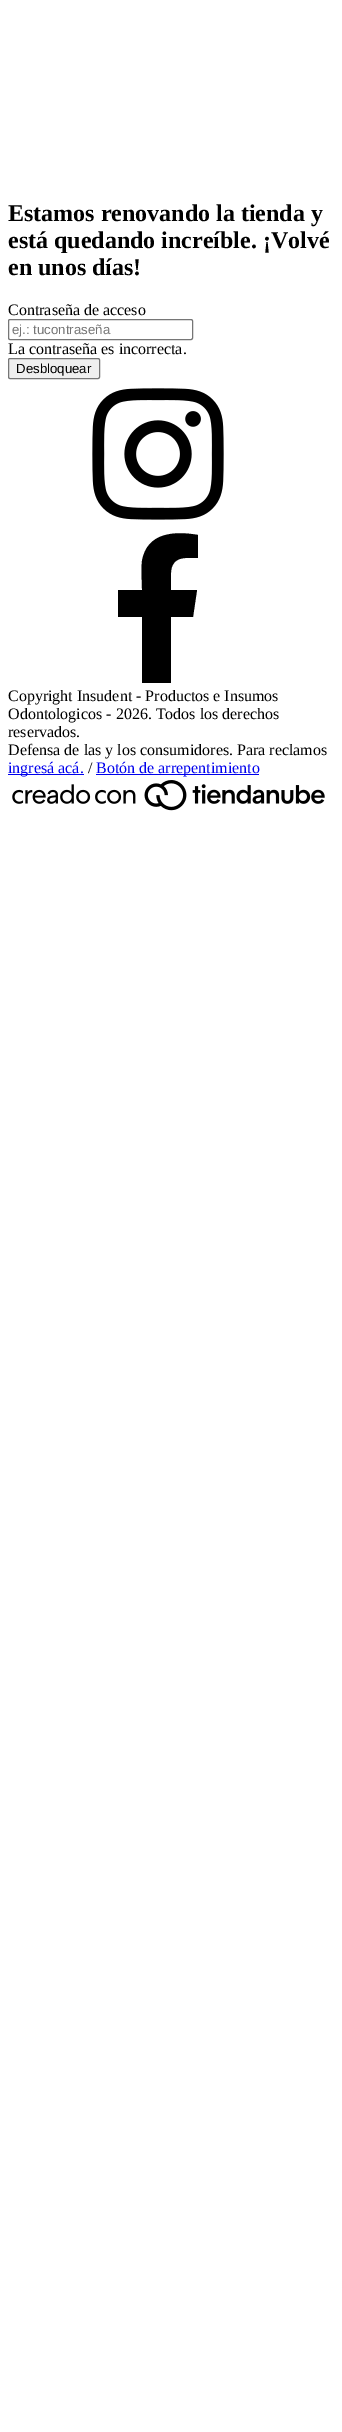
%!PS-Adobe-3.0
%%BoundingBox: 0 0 342 2432
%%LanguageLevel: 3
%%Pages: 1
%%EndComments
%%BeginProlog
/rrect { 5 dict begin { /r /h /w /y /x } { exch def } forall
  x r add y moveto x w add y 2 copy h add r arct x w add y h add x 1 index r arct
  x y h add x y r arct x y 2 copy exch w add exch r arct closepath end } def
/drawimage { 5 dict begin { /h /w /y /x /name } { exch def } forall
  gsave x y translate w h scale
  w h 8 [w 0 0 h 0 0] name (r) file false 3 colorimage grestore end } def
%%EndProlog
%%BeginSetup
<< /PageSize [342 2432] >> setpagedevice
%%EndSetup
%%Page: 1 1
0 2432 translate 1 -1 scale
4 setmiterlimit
1 setgray
0 0 342 2432 rectfill
0.463 setgray
8.5 319.5 184 20 1.5 rrect stroke
0.937 setgray
8.5 358.5 91 20 1.5 rrect gsave fill grestore
0.463 setgray
stroke
(images/1.raw) 92 388 132 132 drawimage
0 setgray
newpath 193 617 moveto 197 590 lineto 171 590 lineto 171 573 lineto 171 565 175 558 186 558 curveto 198 558 lineto 198 535 lineto 175 531 147 532 142 561 curveto 141 571 142 581 142 590 curveto 118 590 lineto 118 617 lineto 142 617 lineto 142 683 lineto 171 683 lineto 171 617 lineto closepath fill
0 0 0.933 setrgbcolor
8 774 76 1 rectfill
96 774 163 1 rectfill
(images/2.raw) 12 780 313 31 drawimage
/LiberationSerif-Bold [24 0 0 -24 0 0] selectfont
0 setgray
8 221 moveto (Estamos renovando la tienda y) show
8 248 moveto (está quedando increíble. ¡Volvé) show
8 275 moveto (en unos días!) show
/LiberationSerif-Regular [16 0 0 -16 0 0] selectfont
8 315 moveto (Contraseña de acceso) show
/LiberationSans-Regular [13.25 0 0 -13.25 0 0] selectfont
0.459 setgray
12 334 moveto (ej.: tucontraseña) show
/LiberationSerif-Regular [16 0 0 -16 0 0] selectfont
0 setgray
8 354 moveto (La contraseña es incorrecta.) show
/LiberationSans-Regular [13.25 0 0 -13.25 0 0] selectfont
16 373 moveto (Desbloquear) show
/LiberationSerif-Regular [16 0 0 -16 0 0] selectfont
8 701 moveto (Copyright Insudent - Productos e Insumos) show
8 719 moveto (Odontologicos - 2026. Todos los derechos) show
8 737 moveto (reservados.) show
8 755 moveto (Defensa de las y los consumidores. Para reclamos) show
0 0 0.933 setrgbcolor
8 773 moveto (ingresá acá.) show
0 setgray
88 773 moveto (/) show
0 0 0.933 setrgbcolor
96 773 moveto (Botón de arrepentimiento) show
showpage
%%EOF
